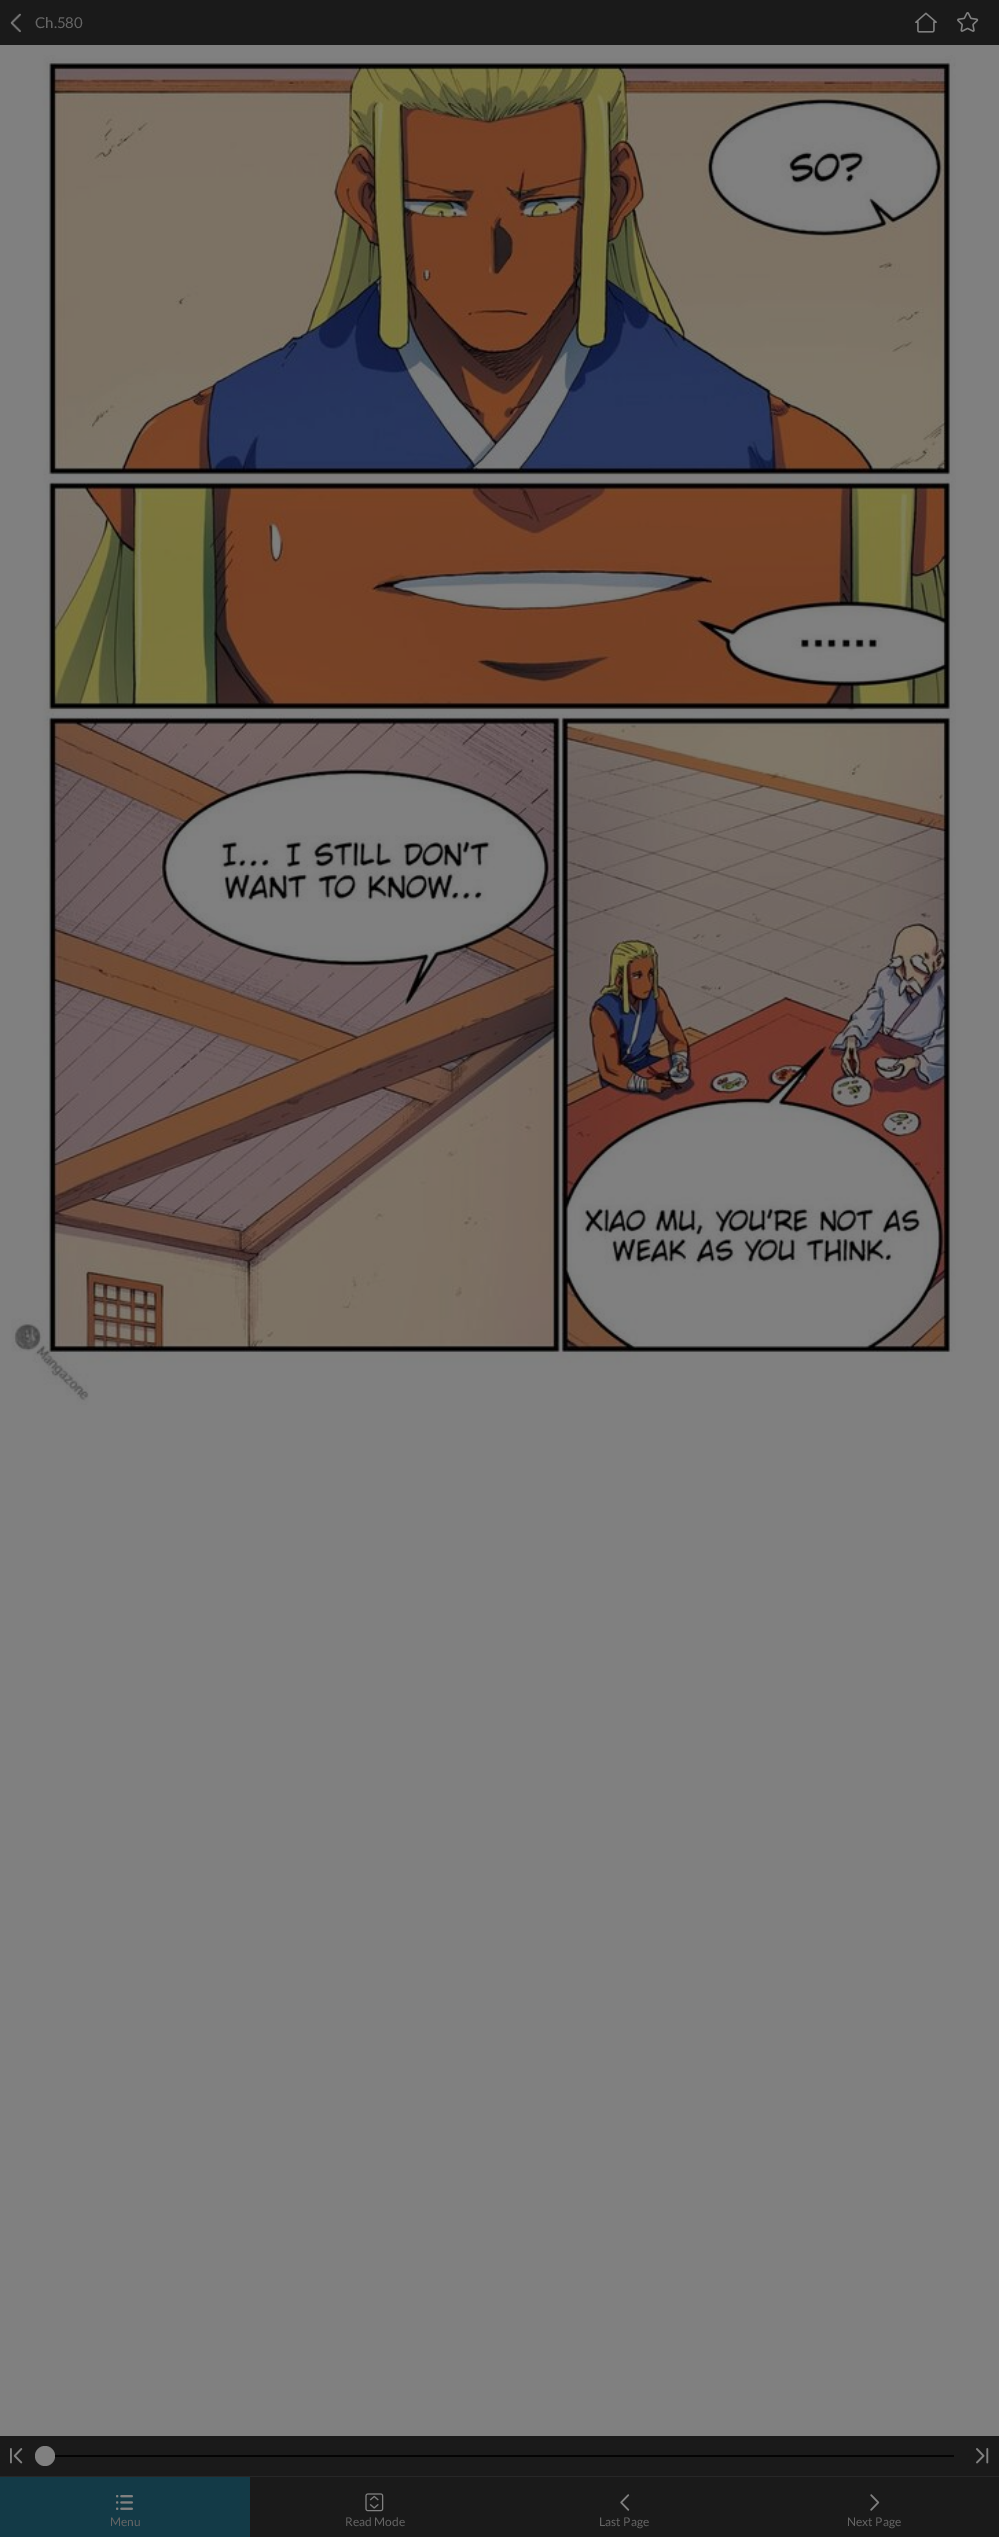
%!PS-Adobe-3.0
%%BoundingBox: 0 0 999 2537
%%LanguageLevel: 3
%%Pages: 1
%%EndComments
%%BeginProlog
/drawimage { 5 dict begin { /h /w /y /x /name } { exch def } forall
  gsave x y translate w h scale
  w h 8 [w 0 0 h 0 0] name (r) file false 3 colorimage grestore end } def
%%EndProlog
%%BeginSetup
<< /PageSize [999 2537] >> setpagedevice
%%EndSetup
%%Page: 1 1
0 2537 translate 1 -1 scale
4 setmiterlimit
0.502 setgray
0 0 999 2537 rectfill
0.102 setgray
0 2436 999 40 rectfill
0 0 999 45 rectfill
(images/1.raw) 10 13 11 20 drawimage
(images/2.raw) 915 12 22 21 drawimage
(images/3.raw) 957 12 22 20 drawimage
(images/4.raw) 11 55 945 1350 drawimage
(images/5.raw) 10 2448 13 16 drawimage
0.016 setgray
54 2455 900 2 rectfill
0.502 setgray
newpath 45 2456 10 0 360 arc closepath fill
(images/6.raw) 976 2448 13 16 drawimage
0.102 setgray
250 2477 749 60 rectfill
0.153 setgray
0 2476 999 1 rectfill
0.075 0.227 0.278 setrgbcolor
0 2477 250 60 rectfill
(images/7.raw) 116 2495 17 15 drawimage
(images/8.raw) 365 2493 19 19 drawimage
(images/9.raw) 620 2494 10 17 drawimage
(images/10.raw) 870 2494 10 17 drawimage
/Lato-Regular [15 0 0 -15 0 0] selectfont
0.396 setgray
35 28 moveto (Ch.580) show
/Lato-Regular [12 0 0 -12 0 0] selectfont
110 2526 moveto (Menu) show
345 2526 moveto (Read Mode) show
599 2526 moveto (Last Page) show
847 2526 moveto (Next Page) show
showpage
%%EOF
